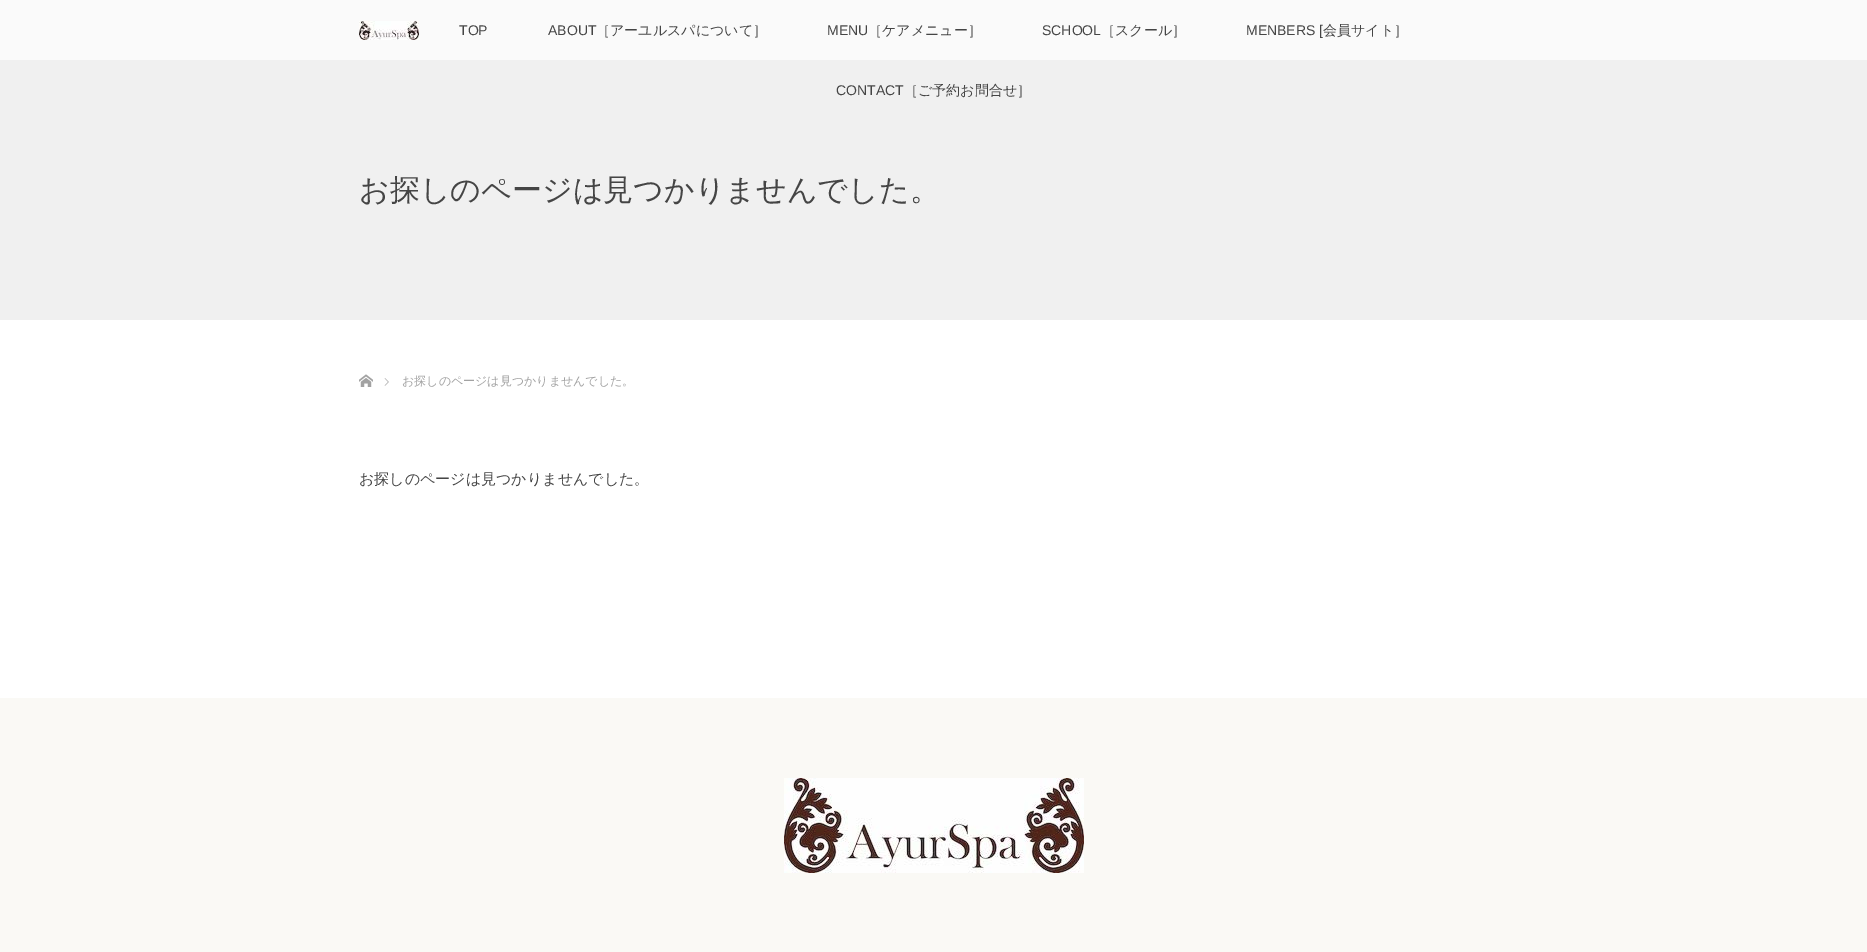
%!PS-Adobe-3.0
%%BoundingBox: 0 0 1867 952
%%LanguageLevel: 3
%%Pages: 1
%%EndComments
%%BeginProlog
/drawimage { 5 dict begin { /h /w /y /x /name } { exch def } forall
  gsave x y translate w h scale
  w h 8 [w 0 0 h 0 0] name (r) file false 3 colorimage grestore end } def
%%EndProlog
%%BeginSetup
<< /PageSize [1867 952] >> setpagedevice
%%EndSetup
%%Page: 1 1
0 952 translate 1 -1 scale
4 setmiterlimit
1 setgray
0 0 1867 952 rectfill
0.98 setgray
0 0 1867 60 rectfill
(images/1.raw) 359 21 60 19 drawimage
0.941 setgray
0 60 1867 260 rectfill
(images/2.raw) 359 374 14 13 drawimage
(images/3.raw) 384 378 5 8 drawimage
0.98 0.976 0.961 setrgbcolor
0 698 1867 254 rectfill
(images/4.raw) 784 778 300 95 drawimage
/LiberationSans-Regular [14 0 0 -14 0 0] selectfont
0.271 setgray
459 35 moveto (TOP) show
548 35 moveto (ABOUT) show
/WenQuanYiZenHei-Medium [14 0 0 -14 0 0] selectfont
596 35 moveto (［アーユルスパについて］) show
/LiberationSans-Regular [14 0 0 -14 0 0] selectfont
827 35 moveto (MENU) show
/WenQuanYiZenHei-Medium [14 0 0 -14 0 0] selectfont
868 35 moveto (［ケアメニュー］) show
/LiberationSans-Regular [14 0 0 -14 0 0] selectfont
1042 35 moveto (SCHOOL) show
/WenQuanYiZenHei-Medium [14 0 0 -14 0 0] selectfont
1101 35 moveto (［スクール］) show
/LiberationSans-Regular [14 0 0 -14 0 0] selectfont
1246 35 moveto (MENBERS [) show
/WenQuanYiZenHei-Medium [14 0 0 -14 0 0] selectfont
1323 35 moveto (会員サイト］) show
/LiberationSans-Regular [14 0 0 -14 0 0] selectfont
836 95 moveto (CONTACT) show
/WenQuanYiZenHei-Medium [14 0 0 -14 0 0] selectfont
904 95 moveto (［ご予約お問合せ］) show
/WenQuanYiZenHei-Medium [30 0 0 -30 0 0] selectfont
359 200 moveto (お探しのページは見つかりませんでした。) show
/WenQuanYiZenHei-Medium [12 0 0 -12 0 0] selectfont
0.635 setgray
402 385 moveto (お探しのページは見つかりませんでした。) show
/WenQuanYiZenHei-Medium [15 0 0 -15 0 0] selectfont
0.271 setgray
359 484 moveto (お探しのページは見つかりませんでした。) show
showpage
%%EOF
